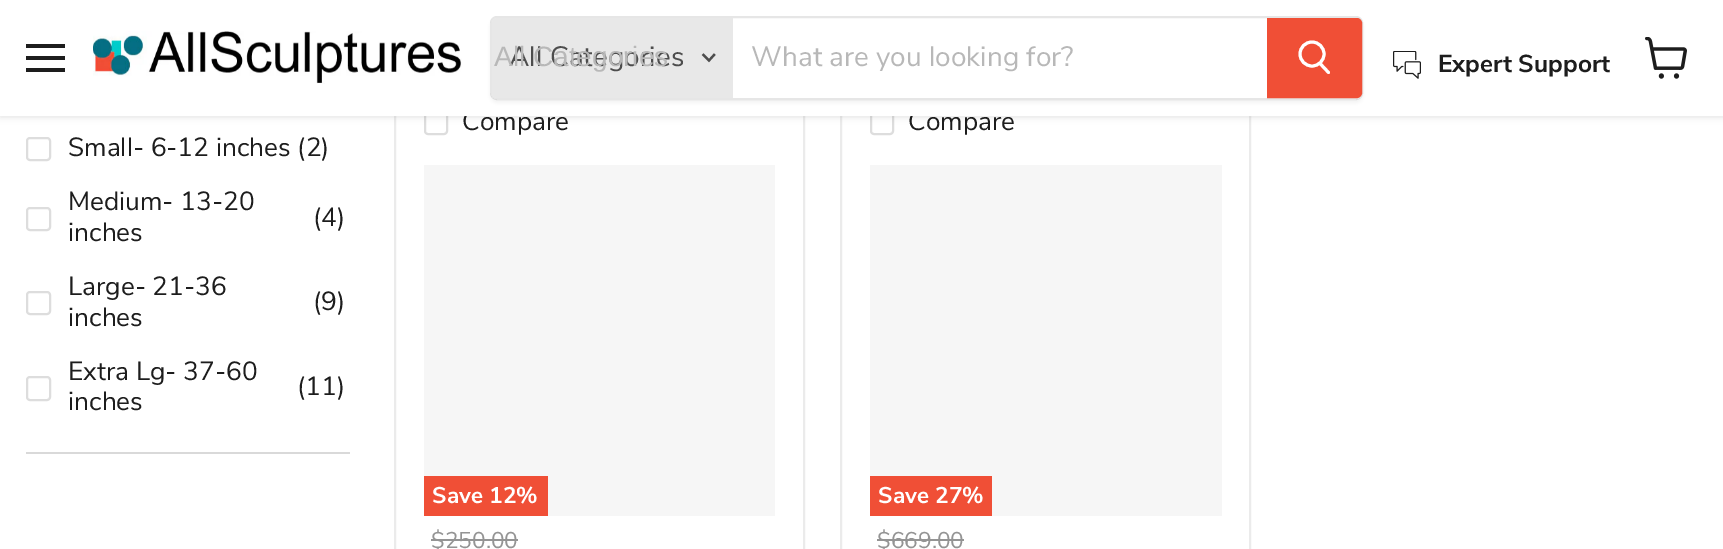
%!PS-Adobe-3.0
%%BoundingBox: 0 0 1723 549
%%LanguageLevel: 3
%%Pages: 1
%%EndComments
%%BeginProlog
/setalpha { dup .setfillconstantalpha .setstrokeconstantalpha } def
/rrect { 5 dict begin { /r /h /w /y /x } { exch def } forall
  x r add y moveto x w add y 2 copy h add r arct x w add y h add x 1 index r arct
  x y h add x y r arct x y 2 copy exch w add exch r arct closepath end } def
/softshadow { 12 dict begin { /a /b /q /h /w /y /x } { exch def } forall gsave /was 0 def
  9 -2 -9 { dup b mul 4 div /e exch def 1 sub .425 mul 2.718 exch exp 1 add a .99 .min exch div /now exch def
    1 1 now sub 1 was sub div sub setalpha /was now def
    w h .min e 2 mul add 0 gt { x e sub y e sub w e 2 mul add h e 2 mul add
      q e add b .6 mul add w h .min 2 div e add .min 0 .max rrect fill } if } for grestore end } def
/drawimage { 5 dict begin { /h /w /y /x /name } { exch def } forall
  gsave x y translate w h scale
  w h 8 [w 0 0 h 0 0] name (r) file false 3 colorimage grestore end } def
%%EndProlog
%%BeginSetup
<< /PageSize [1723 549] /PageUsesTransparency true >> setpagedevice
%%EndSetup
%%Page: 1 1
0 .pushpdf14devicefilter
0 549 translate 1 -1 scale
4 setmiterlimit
1 setgray
0 0 1723 549 rectfill
0.922 setgray
2 setlinewidth
395 71 409 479 rectstroke
0.867 setgray
425 111 22 23 3 rrect stroke
0.922 setgray
841 71 409 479 rectstroke
0.867 setgray
871 111 22 23 3 rrect stroke
0.502 setgray
0 2 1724 115 0 3.5 0.25 softshadow
0.851 setgray
26 452 324 2 rectfill
0.867 setgray
27 138 23 22 3 rrect stroke
27 208 23 22 3 rrect stroke
27 292 23 22 3 rrect stroke
27 377 23 23 3 rrect stroke
0.965 setgray
424 165 351 351 rectfill
0.941 0.31 0.212 setrgbcolor
424 476 124 40 rectfill
0.58 setgray
431 539 87 2 rectfill
0.965 setgray
870 165 352 351 rectfill
0.941 0.31 0.212 setrgbcolor
870 476 122 40 rectfill
0.58 setgray
877 539 87 2 rectfill
/NunitoSans-Regular [26.25 0 0 -26.25 0 0] selectfont
0.114 setgray
68 156 moveto (Small- 6-12 inches \(2\)) show
68 210 moveto (Medium- 13-20) show
68 241 moveto (inches) show
313 226 moveto (\(4\)) show
68 295 moveto (Large- 21-36) show
68 326 moveto (inches) show
313 310 moveto (\(9\)) show
68 380 moveto (Extra Lg- 37-60) show
68 410 moveto (inches) show
297 395 moveto (\(11\)) show
462 130 moveto (Compare) show
/NunitoSans-Bold [22.75 0 0 -22.75 0 0] selectfont
1 setgray
432 503 moveto (Save 12%) show
/NunitoSans-Regular [22.75 0 0 -22.75 0 0] selectfont
0.58 setgray
431 548 moveto ($250.00) show
/NunitoSans-Regular [26.25 0 0 -26.25 0 0] selectfont
0.114 setgray
908 130 moveto (Compare) show
1 setgray
0 0 1723 116 rectfill
gsave
newpath 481 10 moveto 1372 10 lineto 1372 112 lineto 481 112 lineto closepath 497 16 moveto 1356 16 lineto 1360 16 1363 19 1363 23 curveto 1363 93 lineto 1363 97 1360 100 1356 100 curveto 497 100 lineto 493 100 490 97 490 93 curveto 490 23 lineto 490 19 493 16 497 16 curveto closepath eoclip newpath
0.502 setgray
490 19 873 84 7 2.5 0.11 softshadow
grestore
0.2 setalpha
0.502 setgray
491 17 871 82 6 rrect stroke
1 setalpha
0.91 setgray
newpath 497 18 moveto 733 18 lineto 733 98 lineto 497 98 lineto 494 98 492 96 492 93 curveto 492 23 lineto 492 20 494 18 497 18 curveto closepath fill
0.302 setgray
2.2 setlinewidth
2 setlinecap
newpath 709 60.5 moveto 714 55 lineto 709 60.5 moveto 703.5 55 lineto stroke
/NunitoSans-Regular [28 0 0 -28 0 0] selectfont
509 66 moveto (All Categories) show
/LiberationSans-Regular [28 0 0 -28 0 0] selectfont
0.722 setgray
494 66 moveto (All Categories) show
/NunitoSans-Regular [28 0 0 -28 0 0] selectfont
751 66 moveto (What are you looking for?) show
0.941 0.31 0.212 setrgbcolor
newpath 1268 19 moveto 1357 19 lineto 1359 19 1361 21 1361 23 curveto 1361 93 lineto 1361 95 1359 97 1357 97 curveto 1268 97 lineto closepath gsave fill grestore
2 setlinewidth
0 setlinecap
stroke
1 setgray
3 setlinewidth
1 setlinecap
newpath 1328.5 72.5 moveto 1320.5 64 lineto stroke
0 setlinecap
newpath 1312 54 12 0 360 arc closepath stroke
(images/3.raw) 1645 37 42 42 drawimage
0.114 setgray
26 68 39 4 rectfill
26 56 39 4 rectfill
26 44 39 4 rectfill
(images/2.raw) 1393 51 28 28 drawimage
/NunitoSans-Bold [24.5 0 0 -24.5 0 0] selectfont
1438 72 moveto (Expert Support) show
(images/1.raw) 93 31 369 53 drawimage
/NunitoSans-Bold [22.75 0 0 -22.75 0 0] selectfont
1 setgray
878 503 moveto (Save 27%) show
/NunitoSans-Regular [22.75 0 0 -22.75 0 0] selectfont
0.58 setgray
877 548 moveto ($669.00) show
.poppdf14devicefilter showpage
%%EOF
